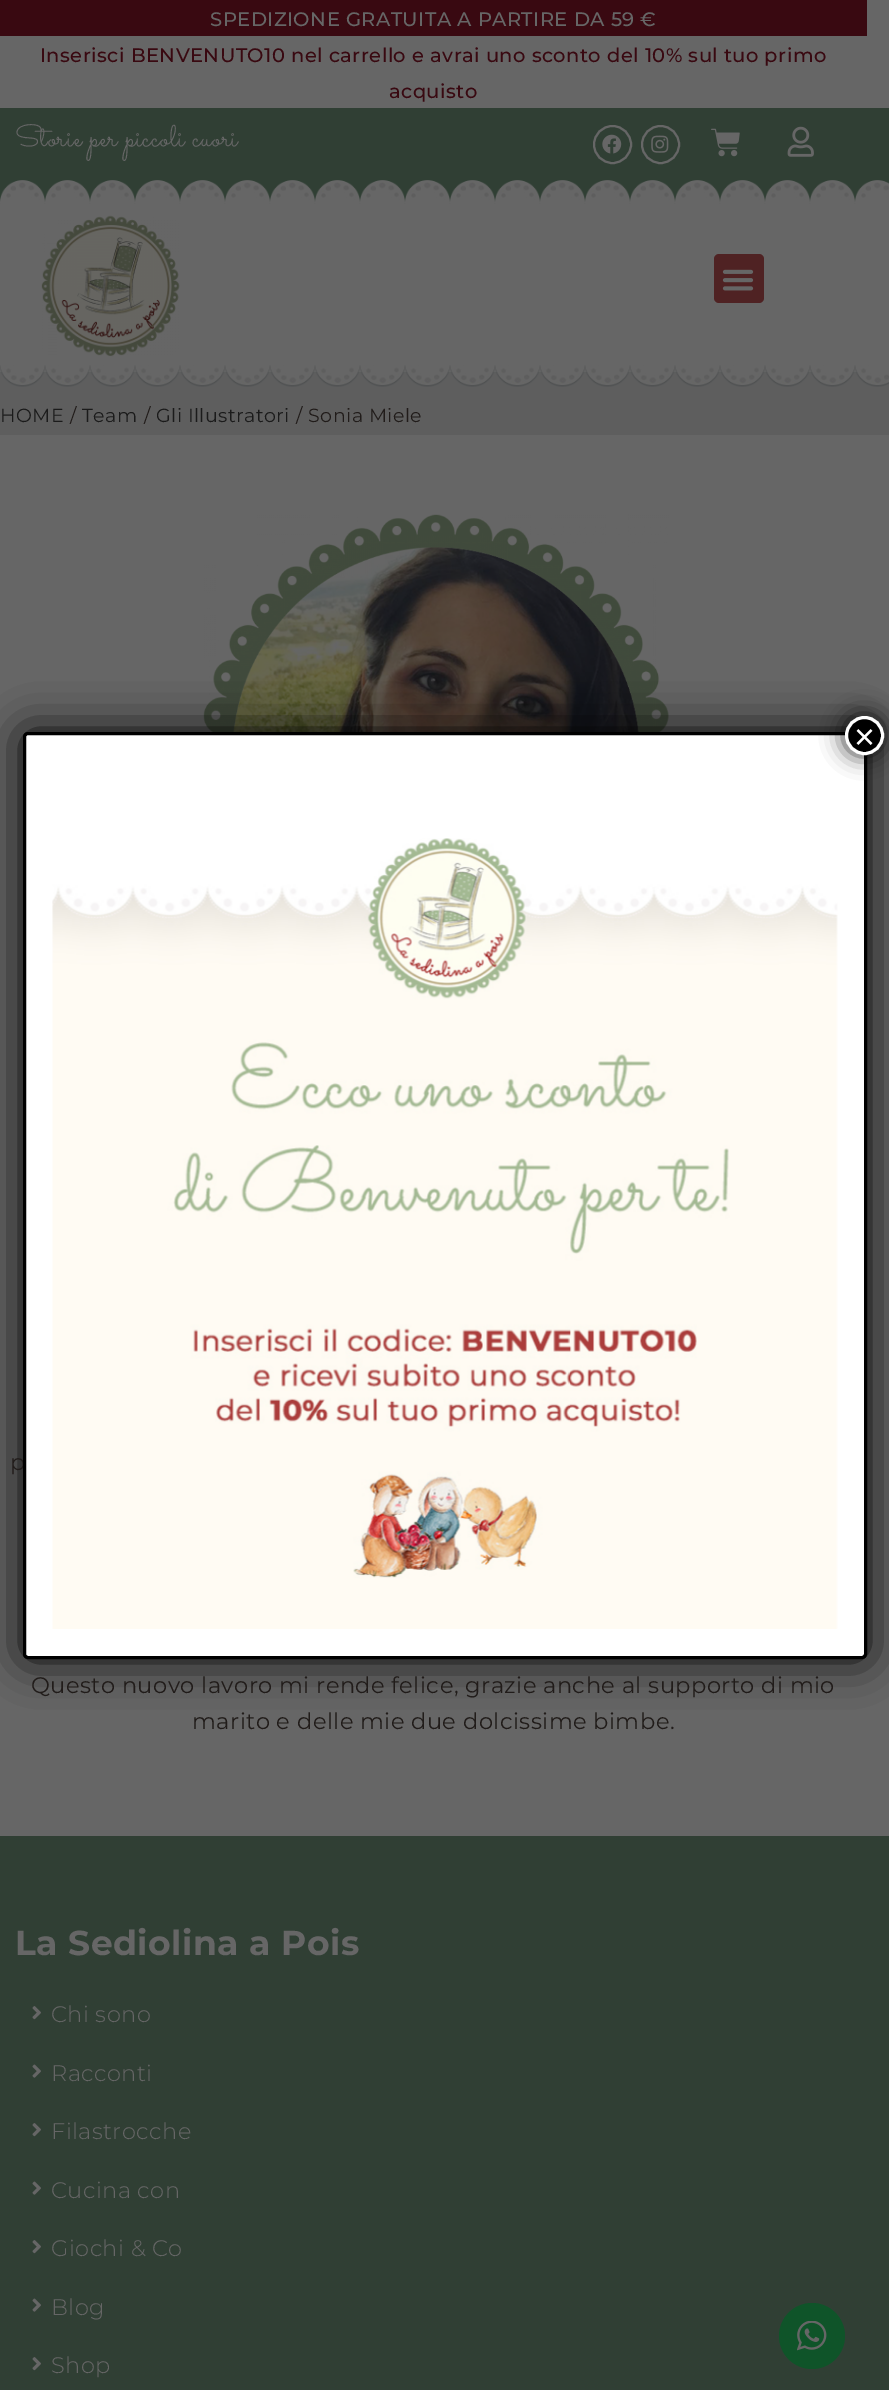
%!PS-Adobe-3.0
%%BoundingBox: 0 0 889 2390
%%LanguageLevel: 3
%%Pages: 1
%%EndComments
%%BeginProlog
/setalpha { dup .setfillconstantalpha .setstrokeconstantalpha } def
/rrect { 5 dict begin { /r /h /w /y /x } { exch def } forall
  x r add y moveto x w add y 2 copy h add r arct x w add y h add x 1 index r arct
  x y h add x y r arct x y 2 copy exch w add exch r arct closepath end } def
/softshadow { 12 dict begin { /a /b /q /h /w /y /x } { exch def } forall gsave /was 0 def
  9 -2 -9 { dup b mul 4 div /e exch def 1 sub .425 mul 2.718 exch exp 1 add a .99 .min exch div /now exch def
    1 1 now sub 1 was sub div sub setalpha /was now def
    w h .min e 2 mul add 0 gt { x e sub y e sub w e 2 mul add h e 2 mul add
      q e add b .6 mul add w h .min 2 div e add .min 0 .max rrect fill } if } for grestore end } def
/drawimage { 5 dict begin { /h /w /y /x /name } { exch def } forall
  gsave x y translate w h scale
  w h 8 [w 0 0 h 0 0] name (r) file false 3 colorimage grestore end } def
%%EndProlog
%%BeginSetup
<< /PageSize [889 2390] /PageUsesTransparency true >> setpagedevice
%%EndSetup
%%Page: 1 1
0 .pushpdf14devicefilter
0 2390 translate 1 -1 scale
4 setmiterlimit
0.4 setgray
0 0 889 2390 rectfill
0.224 0.035 0.067 setrgbcolor
0 0 867 36 rectfill
0.188 0.247 0.204 setrgbcolor
0 108 889 96 rectfill
0.4 setgray
2 setlinewidth
newpath 612.5 144.5 18.5 0 360 arc closepath stroke
(images/1.raw) 602 134 20 20 drawimage
newpath 660.5 144.5 18.5 0 360 arc closepath stroke
(images/2.raw) 651 135 18 18 drawimage
(images/3.raw) 711 128 29 29 drawimage
(images/4.raw) 787 126 27 31 drawimage
(images/5.raw) 0 180 889 24 drawimage
(images/6.raw) 41 215 139 142 drawimage
0.31 0.133 0.137 setrgbcolor
714 254 50 49 5 rrect fill
(images/7.raw) 722 269 32 22 drawimage
0.369 setgray
0 372 859 2 rectfill
0 374 889 61 rectfill
(images/8.raw) 0 365 889 22 drawimage
(images/9.raw) 203 514 466 218 drawimage
0.008 setgray
23 732 844 927 5 22.5 1 softshadow
0.188 0.247 0.204 setrgbcolor
0 1836 889 554 rectfill
(images/11.raw) 32 2006 9 14 drawimage
(images/12.raw) 32 2064 9 14 drawimage
(images/11.raw) 32 2123 9 14 drawimage
(images/12.raw) 32 2181 9 14 drawimage
(images/11.raw) 32 2240 9 14 drawimage
(images/12.raw) 32 2298 9 14 drawimage
(images/11.raw) 32 2357 9 14 drawimage
0.059 0.329 0.161 setrgbcolor
newpath 812 2336 33 0 360 arc closepath fill
(images/13.raw) 797 2321 30 30 drawimage
/Montserrat-Medium [19.5 0 0 -19.5 0 0] selectfont
0.4 setgray
210 26 moveto 0.45 0 (SPEDIZIONE GRATUITA A PARTIRE DA 59 €) ashow
0.224 0.035 0.067 setrgbcolor
40 62 moveto 0.45 0 (Inserisci BENVENUTO10 nel carrello e avrai uno sconto del 10% sul tuo primo) ashow
389 98 moveto 0.45 0 (acquisto) ashow
/Sacramento-Regular [30 0 0 -30 0 0] selectfont
0.4 setgray
15 146 moveto 0.45 0 (Storie per piccoli cuori) ashow
/Montserrat-Regular [19 0 0 -19 0 0] selectfont
0.106 setgray
0 422 moveto 0.45 0 (HOME) ashow
0.129 0.11 0.102 setrgbcolor
70 422 moveto 0.45 0 (/) ashow
0.106 setgray
82 422 moveto 0.45 0 (Team) ashow
0.129 0.11 0.102 setrgbcolor
144 422 moveto 0.45 0 (/) ashow
0.106 setgray
156 422 moveto 0.45 0 (Gli Illustratori) ashow
0.129 0.11 0.102 setrgbcolor
296 422 moveto 0.45 0 (/ Sonia Miele) ashow
/Montserrat-Regular [22.5 0 0 -22.5 0 0] selectfont
10 1470 moveto 0.45 0 (p) ashow
31 1693 moveto 0.45 0 (Questo nuovo lavoro mi rende felice, grazie anche al supporto di mio) ashow
192 1729 moveto 0.45 0 (marito e delle mie due dolcissime bimbe.) ashow
1 setgray
24.5 733.5 841 924 3.5 rrect gsave fill grestore
0 setgray
3 setlinewidth
stroke
0.008 setgray
843 714 42 42 21 11 0.75 softshadow
0 setgray
newpath 864.5 735.5 18 0 360 arc closepath gsave fill grestore
1 setgray
stroke
/LiberationSans-Regular [36 0 0 -36 0 0] selectfont
854 749 moveto (×) show
(images/10.raw) 52 838 786 791 drawimage
/Montserrat-Bold [34.5 0 0 -34.5 0 0] selectfont
0.4 setgray
15 1955 moveto 0.45 0 (La Sediolina a Pois) ashow
/Montserrat-Light [22.5 0 0 -22.5 0 0] selectfont
51 2022 moveto 0.45 0 (Chi sono) ashow
51 2081 moveto 0.45 0 (Racconti) ashow
51 2139 moveto 0.45 0 (Filastrocche) ashow
51 2198 moveto 0.45 0 (Cucina con) ashow
51 2256 moveto 0.45 0 (Giochi & Co) ashow
51 2315 moveto 0.45 0 (Blog) ashow
51 2373 moveto 0.45 0 (Shop) ashow
.poppdf14devicefilter showpage
%%EOF
